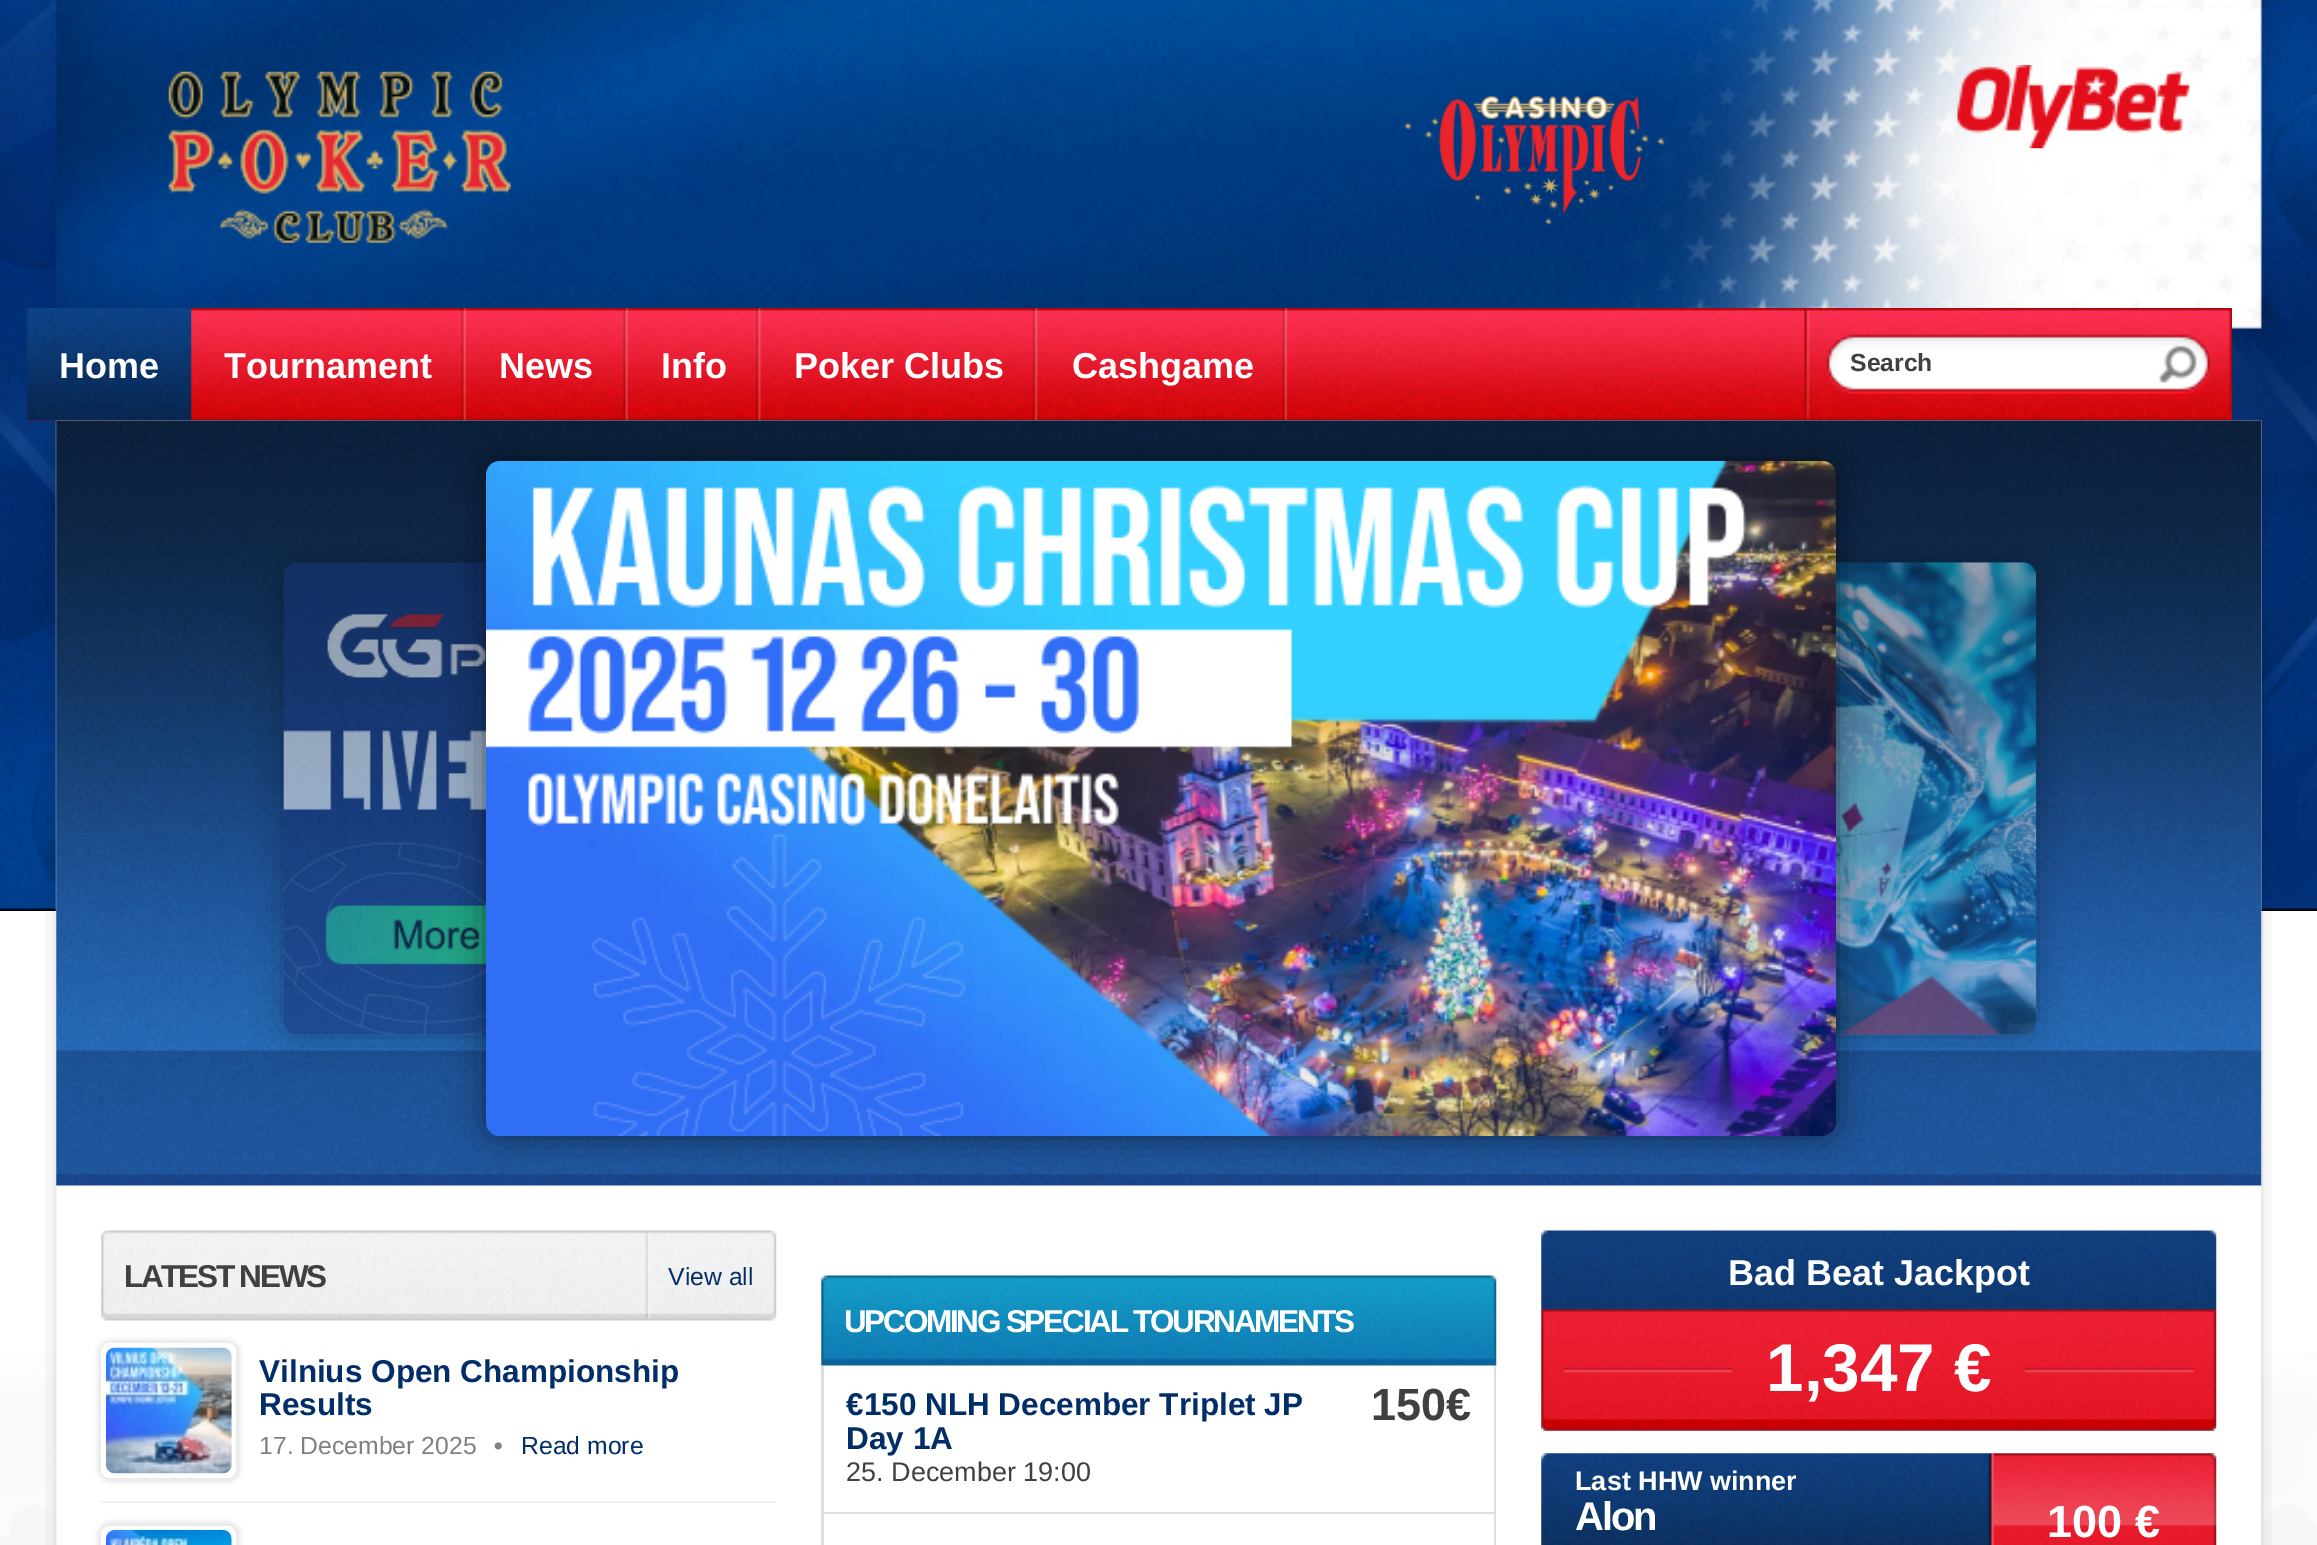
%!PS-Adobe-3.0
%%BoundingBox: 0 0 2317 1545
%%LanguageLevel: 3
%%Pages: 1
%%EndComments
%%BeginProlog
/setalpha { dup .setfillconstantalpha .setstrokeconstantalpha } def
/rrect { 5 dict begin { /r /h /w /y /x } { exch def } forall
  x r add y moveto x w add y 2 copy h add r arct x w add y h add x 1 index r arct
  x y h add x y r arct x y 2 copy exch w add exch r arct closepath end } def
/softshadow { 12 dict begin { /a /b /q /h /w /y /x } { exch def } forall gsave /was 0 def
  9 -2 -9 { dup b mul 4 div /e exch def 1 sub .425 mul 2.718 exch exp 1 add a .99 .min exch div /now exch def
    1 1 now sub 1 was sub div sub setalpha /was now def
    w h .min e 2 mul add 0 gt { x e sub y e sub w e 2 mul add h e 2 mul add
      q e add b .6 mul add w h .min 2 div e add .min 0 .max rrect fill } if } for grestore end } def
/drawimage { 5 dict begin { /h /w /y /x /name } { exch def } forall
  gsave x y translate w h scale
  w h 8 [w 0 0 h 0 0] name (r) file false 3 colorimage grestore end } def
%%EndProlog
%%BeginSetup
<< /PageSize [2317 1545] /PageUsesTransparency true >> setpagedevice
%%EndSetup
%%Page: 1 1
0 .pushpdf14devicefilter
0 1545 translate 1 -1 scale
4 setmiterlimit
1 setgray
0 0 2317 1545 rectfill
(images/1.raw) 0 1352 2317 193 drawimage
(images/2.raw) 0 0 2317 911 drawimage
(images/3.raw) 168 71 343 172 drawimage
(images/4.raw) 1404 96 261 129 drawimage
(images/5.raw) 1957 65 233 84 drawimage
(images/6.raw) 27 308 2205 113 drawimage
(images/7.raw) 27 308 165 113 drawimage
(images/8.raw) 461 308 5 113 drawimage
(images/9.raw) 623 308 5 113 drawimage
(images/10.raw) 756 308 5 113 drawimage
(images/11.raw) 1032 308 6 113 drawimage
(images/12.raw) 1282 308 5 113 drawimage
(images/13.raw) 1804 309 428 112 drawimage
(images/14.raw) 45 420 2227 1125 drawimage
(images/15.raw) 56 420 2206 766 drawimage
gsave
newpath 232 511 moveto 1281 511 lineto 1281 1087 lineto 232 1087 lineto closepath 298 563 moveto 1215 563 lineto 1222.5 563 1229 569.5 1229 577 curveto 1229 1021 lineto 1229 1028.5 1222.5 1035 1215 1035 curveto 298 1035 lineto 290.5 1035 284 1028.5 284 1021 curveto 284 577 lineto 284 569.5 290.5 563 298 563 curveto closepath eoclip newpath
0 setgray
284 563 945 472 14 17 0.28 softshadow
grestore
(images/17.raw) 283 562 203 473 drawimage
gsave
newpath 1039 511 moveto 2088 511 lineto 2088 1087 lineto 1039 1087 lineto closepath 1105 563 moveto 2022 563 lineto 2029.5 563 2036 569.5 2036 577 curveto 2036 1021 lineto 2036 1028.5 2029.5 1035 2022 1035 curveto 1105 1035 lineto 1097.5 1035 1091 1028.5 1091 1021 curveto 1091 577 lineto 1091 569.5 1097.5 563 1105 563 curveto closepath eoclip newpath
0 setgray
1091 563 945 472 14 17 0.28 softshadow
grestore
(images/18.raw) 1836 562 201 473 drawimage
0 setgray
486 461 1350 675 14 17 0.5 softshadow
(images/16.raw) 486 461 1350 675 drawimage
(images/19.raw) 101 1230 676 91 drawimage
(images/20.raw) 645 1232 6 87 drawimage
0.941 setgray
101 1501 675 2 rectfill
0 setgray
97 1339 144 144 14 2 0.07 softshadow
1 setgray
101 1343 135 135 9 rrect fill
(images/21.raw) 105 1347 127 127 drawimage
0 setgray
97 1521 144 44 14 2 0.07 softshadow
1 setgray
101 1526 135 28 9 rrect fill
(images/22.raw) 105 1529 127 16 drawimage
(images/23.raw) 821 1275 676 91 drawimage
0.871 setgray
newpath 821 1366 moveto 1496 1366 lineto 1496 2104 lineto 1496 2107 1493 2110 1490 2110 curveto 828 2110 lineto 824 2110 821 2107 821 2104 curveto closepath 824 1366 moveto 1494 1366 lineto 1494 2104 lineto 1494 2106 1492 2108 1490 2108 curveto 828 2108 lineto 826 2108 824 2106 824 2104 curveto closepath eofill
824 1512 670 2 rectfill
(images/24.raw) 1541 1230 676 201 drawimage
(images/25.raw) 1563 1367 631 6 drawimage
(images/26.raw) 1732 1334 293 68 drawimage
(images/27.raw) 1541 1453 676 92 drawimage
/LiberationSans-Bold [36 0 0 -36 0 0] selectfont
1 setgray
59 378 moveto (Home) show
224 378 moveto (Tournament) show
499 378 moveto (News) show
661 378 moveto (Info) show
794 378 moveto (Poker Clubs) show
1072 378 moveto (Cashgame) show
/LiberationSans-Bold [24.75 0 0 -24.75 0 0] selectfont
0.251 setgray
1850 371 moveto (Search) show
/LiberationSans-Bold [31.5 0 0 -31.5 0 0] selectfont
124 1287 moveto -2.25 0 (LATEST NEWS) ashow
/LiberationSans-Regular [24.75 0 0 -24.75 0 0] selectfont
0.004 0.18 0.408 setrgbcolor
668 1285 moveto (View all) show
/LiberationSans-Bold [31.5 0 0 -31.5 0 0] selectfont
259 1382 moveto (Vilnius Open Championship) show
259 1415 moveto (Results) show
/LiberationSans-Regular [24.75 0 0 -24.75 0 0] selectfont
0.502 setgray
259 1454 moveto (17. December 2025) show
/LiberationSans-Bold [24.75 0 0 -24.75 0 0] selectfont
494 1454 moveto (•) show
/LiberationSans-Regular [24.75 0 0 -24.75 0 0] selectfont
0.004 0.18 0.408 setrgbcolor
521 1454 moveto (Read more) show
/LiberationSans-Bold [31.5 0 0 -31.5 0 0] selectfont
1 setgray
844 1332 moveto -2.25 0 (UPCOMING SPECIAL TOURNAMENTS) ashow
0.004 0.18 0.408 setrgbcolor
846 1415 moveto (€150 NLH December Triplet JP) show
846 1449 moveto (Day 1A) show
/LiberationSans-Bold [45 0 0 -45 0 0] selectfont
0.251 setgray
1371 1420 moveto (150€) show
/LiberationSans-Regular [27 0 0 -27 0 0] selectfont
846 1481 moveto (25. December 19:00) show
/LiberationSans-Bold [36 0 0 -36 0 0] selectfont
1 setgray
1728 1285 moveto (Bad Beat Jackpot) show
/LiberationSans-Bold [67.5 0 0 -67.5 0 0] selectfont
1766 1391 moveto (1,347 €) show
/LiberationSans-Bold [27 0 0 -27 0 0] selectfont
1575 1490 moveto (Last HHW winner) show
/LiberationSans-Bold [40 0 0 -40 0 0] selectfont
1575 1530 moveto -2.25 0 (Alon) ashow
/LiberationSans-Bold [45 0 0 -45 0 0] selectfont
2047 1537 moveto (100 €) show
.poppdf14devicefilter showpage
%%EOF
